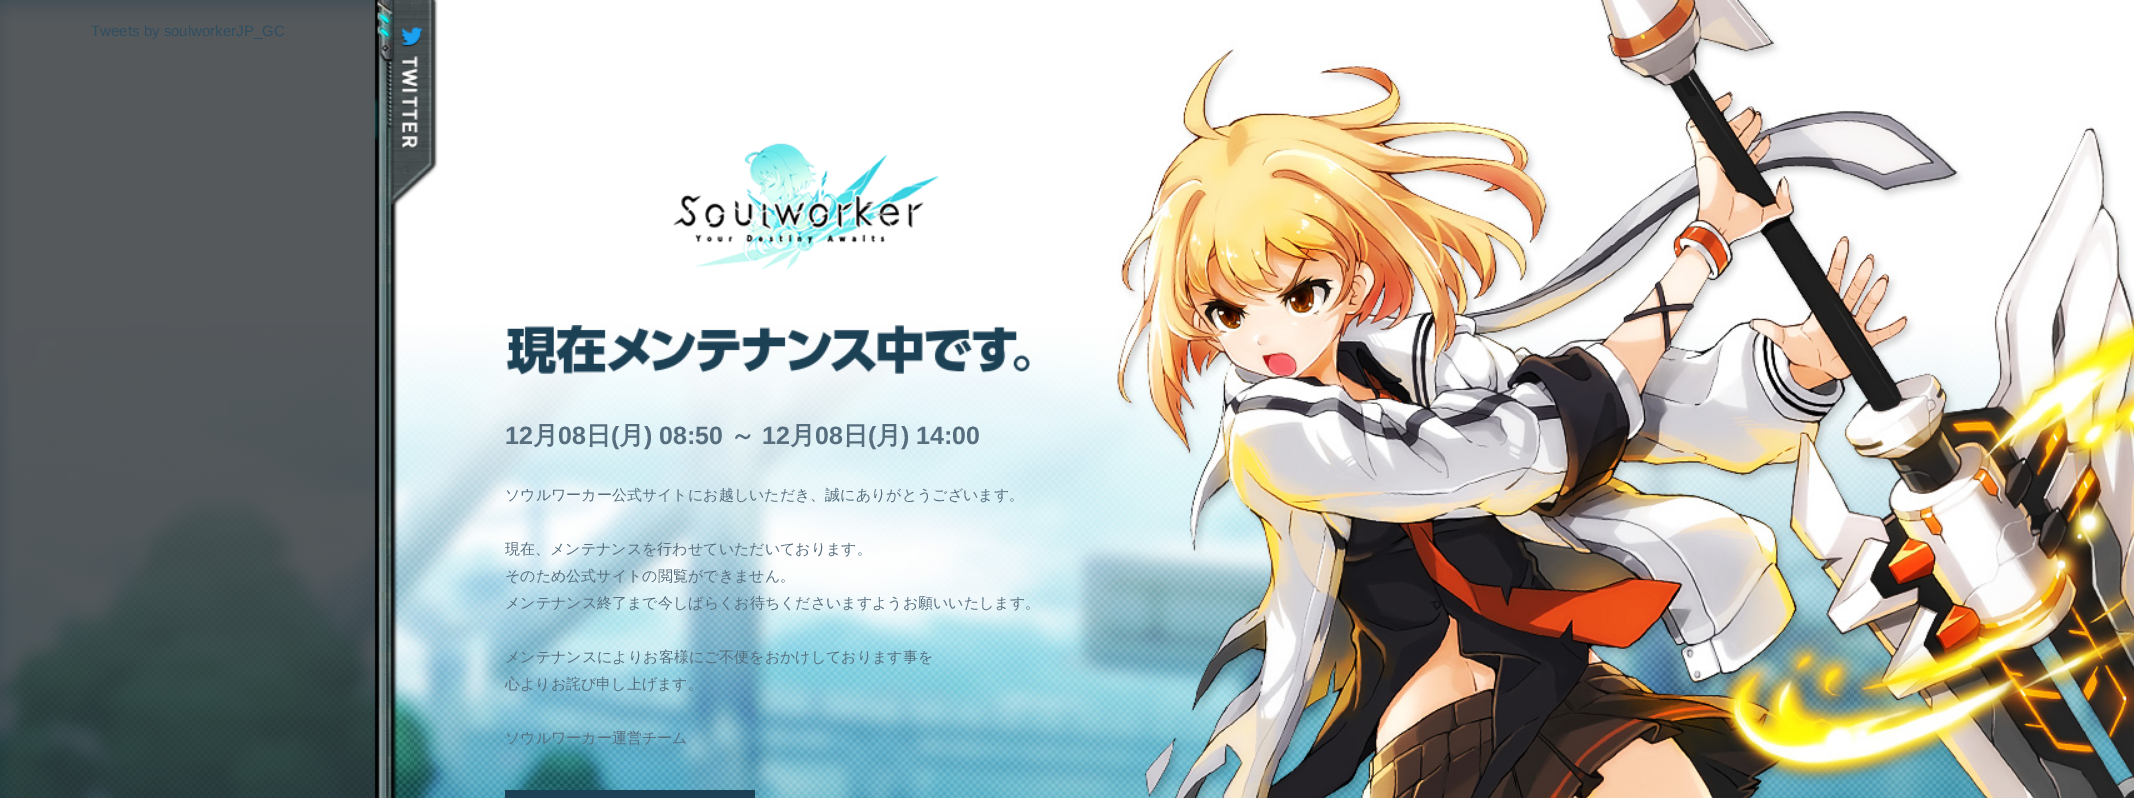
%!PS-Adobe-3.0
%%BoundingBox: 0 0 2134 798
%%LanguageLevel: 3
%%Pages: 1
%%EndComments
%%BeginProlog
/drawimage { 5 dict begin { /h /w /y /x /name } { exch def } forall
  gsave x y translate w h scale
  w h 8 [w 0 0 h 0 0] name (r) file false 3 colorimage grestore end } def
%%EndProlog
%%BeginSetup
<< /PageSize [2134 798] >> setpagedevice
%%EndSetup
%%Page: 1 1
0 798 translate 1 -1 scale
4 setmiterlimit
1 setgray
0 0 2134 798 rectfill
(images/1.raw) 0 0 2134 798 drawimage
(images/2.raw) 0 0 438 798 drawimage
(images/3.raw) 673 143 266 127 drawimage
(images/4.raw) 506 325 524 50 drawimage
0.11 0.251 0.329 setrgbcolor
505 790 250 8 rectfill
/LiberationSans-Regular [15 0 0 -15 0 0] selectfont
0.188 0.306 0.38 setrgbcolor
91 36 moveto (Tweets by soulworkerJP_GC) show
/LiberationSans-Bold [25 0 0 -25 0 0] selectfont
0.337 0.431 0.494 setrgbcolor
505 444 moveto (12) show
/WenQuanYiZenHei-Bold [25 0 0 -25 0 0] selectfont
533 444 moveto (月) show
/LiberationSans-Bold [25 0 0 -25 0 0] selectfont
558 444 moveto (08) show
/WenQuanYiZenHei-Bold [25 0 0 -25 0 0] selectfont
586 444 moveto (日) show
/LiberationSans-Bold [25 0 0 -25 0 0] selectfont
611 444 moveto (\() show
/WenQuanYiZenHei-Bold [25 0 0 -25 0 0] selectfont
619 444 moveto (月) show
/LiberationSans-Bold [25 0 0 -25 0 0] selectfont
644 444 moveto (\) 08:50) show
/WenQuanYiZenHei-Bold [25 0 0 -25 0 0] selectfont
730 444 moveto (～) show
/LiberationSans-Bold [25 0 0 -25 0 0] selectfont
762 444 moveto (12) show
/WenQuanYiZenHei-Bold [25 0 0 -25 0 0] selectfont
790 444 moveto (月) show
/LiberationSans-Bold [25 0 0 -25 0 0] selectfont
815 444 moveto (08) show
/WenQuanYiZenHei-Bold [25 0 0 -25 0 0] selectfont
843 444 moveto (日) show
/LiberationSans-Bold [25 0 0 -25 0 0] selectfont
868 444 moveto (\() show
/WenQuanYiZenHei-Bold [25 0 0 -25 0 0] selectfont
876 444 moveto (月) show
/LiberationSans-Bold [25 0 0 -25 0 0] selectfont
901 444 moveto (\) 14:00) show
/WenQuanYiZenHei-Medium [15 0 0 -15 0 0] selectfont
505 500 moveto (ソウルワーカー公式サイトにお越しいただき、誠にありがとうございます。) show
505 554 moveto (現在、メンテナンスを行わせていただいております。) show
505 581 moveto (そのため公式サイトの閲覧ができません。) show
505 608 moveto (メンテナンス終了まで今しばらくお待ちくださいますようお願いいたします。) show
505 662 moveto (メンテナンスによりお客様にご不便をおかけしております事を) show
505 689 moveto (心よりお詫び申し上げます。) show
505 743 moveto (ソウルワーカー運営チーム) show
showpage
%%EOF
